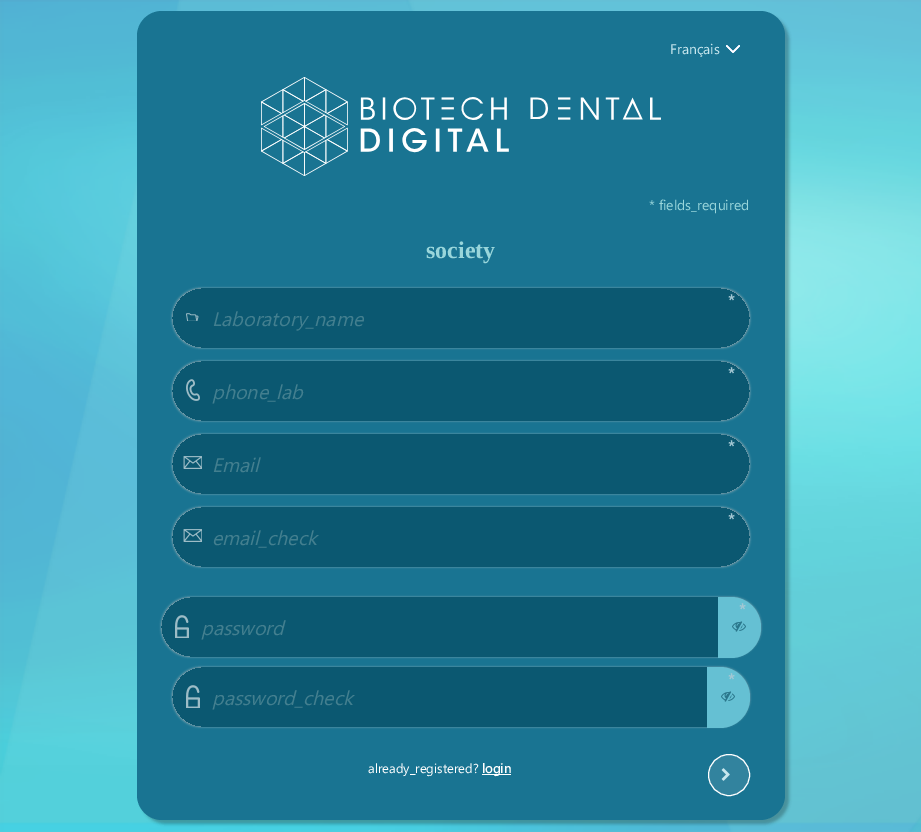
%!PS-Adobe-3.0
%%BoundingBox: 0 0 921 832
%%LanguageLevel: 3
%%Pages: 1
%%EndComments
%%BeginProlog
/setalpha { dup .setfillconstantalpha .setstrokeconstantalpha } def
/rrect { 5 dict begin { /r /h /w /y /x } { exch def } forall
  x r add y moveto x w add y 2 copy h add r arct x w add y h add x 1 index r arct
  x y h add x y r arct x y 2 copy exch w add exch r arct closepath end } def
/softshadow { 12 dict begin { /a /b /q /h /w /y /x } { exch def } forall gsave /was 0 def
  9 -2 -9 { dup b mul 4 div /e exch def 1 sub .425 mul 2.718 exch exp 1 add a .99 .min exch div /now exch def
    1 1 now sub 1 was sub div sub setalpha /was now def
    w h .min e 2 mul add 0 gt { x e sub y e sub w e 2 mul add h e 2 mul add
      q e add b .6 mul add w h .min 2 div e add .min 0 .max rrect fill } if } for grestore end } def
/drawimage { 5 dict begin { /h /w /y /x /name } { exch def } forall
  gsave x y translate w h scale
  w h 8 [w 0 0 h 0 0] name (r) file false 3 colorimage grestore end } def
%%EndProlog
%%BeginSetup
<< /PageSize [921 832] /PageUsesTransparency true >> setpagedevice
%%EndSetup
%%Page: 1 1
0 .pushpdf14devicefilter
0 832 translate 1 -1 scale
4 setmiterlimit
1 setgray
0 0 921 832 rectfill
(images/1.raw) 0 0 921 832 drawimage
0 setgray
141 15 648 809 25 1.5 0.26 softshadow
0.098 0.455 0.573 setrgbcolor
137 11 648 809 25 rrect fill
(images/2.raw) 726 45 14 8 drawimage
(images/3.raw) 261 77 400 99 drawimage
0.043 0.345 0.443 setrgbcolor
172 288 578 60 30 rrect fill
gsave
newpath 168 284 moveto 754 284 lineto 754 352 lineto 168 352 lineto closepath 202 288 moveto 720 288 lineto 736.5 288 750 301.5 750 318 curveto 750 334.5 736.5 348 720 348 curveto 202 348 lineto 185.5 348 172 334.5 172 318 curveto 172 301.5 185.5 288 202 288 curveto closepath eoclip newpath
0.525 0.671 0.718 setrgbcolor
172 288 578 60 30 1 1 softshadow
grestore
(images/4.raw) 186 313 13 8 drawimage
172 361 578 60 30 rrect fill
gsave
newpath 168 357 moveto 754 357 lineto 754 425 lineto 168 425 lineto closepath 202 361 moveto 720 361 lineto 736.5 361 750 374.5 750 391 curveto 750 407.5 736.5 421 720 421 curveto 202 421 lineto 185.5 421 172 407.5 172 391 curveto 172 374.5 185.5 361 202 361 curveto closepath eoclip newpath
0.525 0.671 0.718 setrgbcolor
172 361 578 60 30 1 1 softshadow
grestore
(images/5.raw) 186 379 14 22 drawimage
172 434 578 60 30 rrect fill
gsave
newpath 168 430 moveto 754 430 lineto 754 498 lineto 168 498 lineto closepath 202 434 moveto 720 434 lineto 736.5 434 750 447.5 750 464 curveto 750 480.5 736.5 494 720 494 curveto 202 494 lineto 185.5 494 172 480.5 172 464 curveto 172 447.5 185.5 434 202 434 curveto closepath eoclip newpath
0.525 0.671 0.718 setrgbcolor
172 434 578 60 30 1 1 softshadow
grestore
(images/6.raw) 183 456 19 13 drawimage
172 507 578 60 30 rrect fill
gsave
newpath 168 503 moveto 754 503 lineto 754 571 lineto 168 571 lineto closepath 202 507 moveto 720 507 lineto 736.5 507 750 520.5 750 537 curveto 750 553.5 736.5 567 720 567 curveto 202 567 lineto 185.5 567 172 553.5 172 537 curveto 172 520.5 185.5 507 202 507 curveto closepath eoclip newpath
0.525 0.671 0.718 setrgbcolor
172 507 578 60 30 1 1 softshadow
grestore
(images/6.raw) 183 529 19 13 drawimage
161 597 600 60 30 rrect fill
gsave
newpath 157 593 moveto 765 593 lineto 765 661 lineto 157 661 lineto closepath 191 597 moveto 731 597 lineto 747.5 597 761 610.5 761 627 curveto 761 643.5 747.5 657 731 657 curveto 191 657 lineto 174.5 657 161 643.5 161 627 curveto 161 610.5 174.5 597 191 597 curveto closepath eoclip newpath
0.525 0.671 0.718 setrgbcolor
161 597 600 60 30 1 1 softshadow
grestore
0.396 0.753 0.827 setrgbcolor
newpath 718 597 moveto 731 597 lineto 747.5 597 761 610.5 761 627 curveto 761 628 lineto 761 644.5 747.5 658 731 658 curveto 718 658 lineto closepath fill
(images/7.raw) 732 621 14 11 drawimage
(images/8.raw) 175 615 14 23 drawimage
0.043 0.345 0.443 setrgbcolor
172 667 578 60 30 rrect fill
gsave
newpath 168 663 moveto 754 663 lineto 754 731 lineto 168 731 lineto closepath 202 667 moveto 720 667 lineto 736.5 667 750 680.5 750 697 curveto 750 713.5 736.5 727 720 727 curveto 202 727 lineto 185.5 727 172 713.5 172 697 curveto 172 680.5 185.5 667 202 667 curveto closepath eoclip newpath
0.525 0.671 0.718 setrgbcolor
172 667 578 60 30 1 1 softshadow
grestore
0.396 0.753 0.827 setrgbcolor
newpath 707 667 moveto 720 667 lineto 736.5 667 750 680.5 750 697 curveto 750 698 lineto 750 714.5 736.5 728 720 728 curveto 707 728 lineto closepath fill
(images/7.raw) 721 691 14 11 drawimage
(images/8.raw) 186 685 14 23 drawimage
0.196 0.514 0.62 setrgbcolor
newpath 729 775 20.5 0 360 arc closepath gsave fill grestore
1 setgray
stroke
(images/9.raw) 721 768 9 13 drawimage
482 774 29 1 rectfill
/SegoeUI-Regular [14 0 0 -14 0 0] selectfont
0.784 0.906 0.933 setrgbcolor
670 54 moveto (Français) show
0.6 0.839 0.859 setrgbcolor
649 210 moveto (* fields_required) show
/LiberationSerif-Bold [24 0 0 -24 0 0] selectfont
426 258 moveto (society) show
/SegoeUI-Bold [16 0 0 -16 0 0] selectfont
0.639 0.78 0.827 setrgbcolor
728 306 moveto (*) show
/SegoeUI-Italic [19.75 0 0 -19.75 0 0] selectfont
0.263 0.498 0.561 setrgbcolor
212 326 moveto (Laboratory_name) show
/SegoeUI-Bold [16 0 0 -16 0 0] selectfont
0.639 0.78 0.827 setrgbcolor
728 379 moveto (*) show
/SegoeUI-Italic [19.75 0 0 -19.75 0 0] selectfont
0.263 0.498 0.561 setrgbcolor
212 399 moveto (phone_lab) show
/SegoeUI-Bold [16 0 0 -16 0 0] selectfont
0.639 0.78 0.827 setrgbcolor
728 452 moveto (*) show
/SegoeUI-Italic [19.75 0 0 -19.75 0 0] selectfont
0.263 0.498 0.561 setrgbcolor
212 472 moveto (Email) show
/SegoeUI-Bold [16 0 0 -16 0 0] selectfont
0.639 0.78 0.827 setrgbcolor
728 525 moveto (*) show
/SegoeUI-Italic [19.75 0 0 -19.75 0 0] selectfont
0.263 0.498 0.561 setrgbcolor
212 545 moveto (email_check) show
/SegoeUI-Bold [16 0 0 -16 0 0] selectfont
0.639 0.78 0.827 setrgbcolor
739 615 moveto (*) show
/SegoeUI-Italic [19.75 0 0 -19.75 0 0] selectfont
0.263 0.498 0.561 setrgbcolor
201 635 moveto (password) show
/SegoeUI-Bold [16 0 0 -16 0 0] selectfont
0.639 0.78 0.827 setrgbcolor
728 685 moveto (*) show
/SegoeUI-Italic [19.75 0 0 -19.75 0 0] selectfont
0.263 0.498 0.561 setrgbcolor
212 705 moveto (password_check) show
/SegoeUI-Regular [13 0 0 -13 0 0] selectfont
1 setgray
368 773 moveto (already_registered?) show
/SegoeUI-Bold [13 0 0 -13 0 0] selectfont
482 773 moveto (login) show
.poppdf14devicefilter showpage
%%EOF
